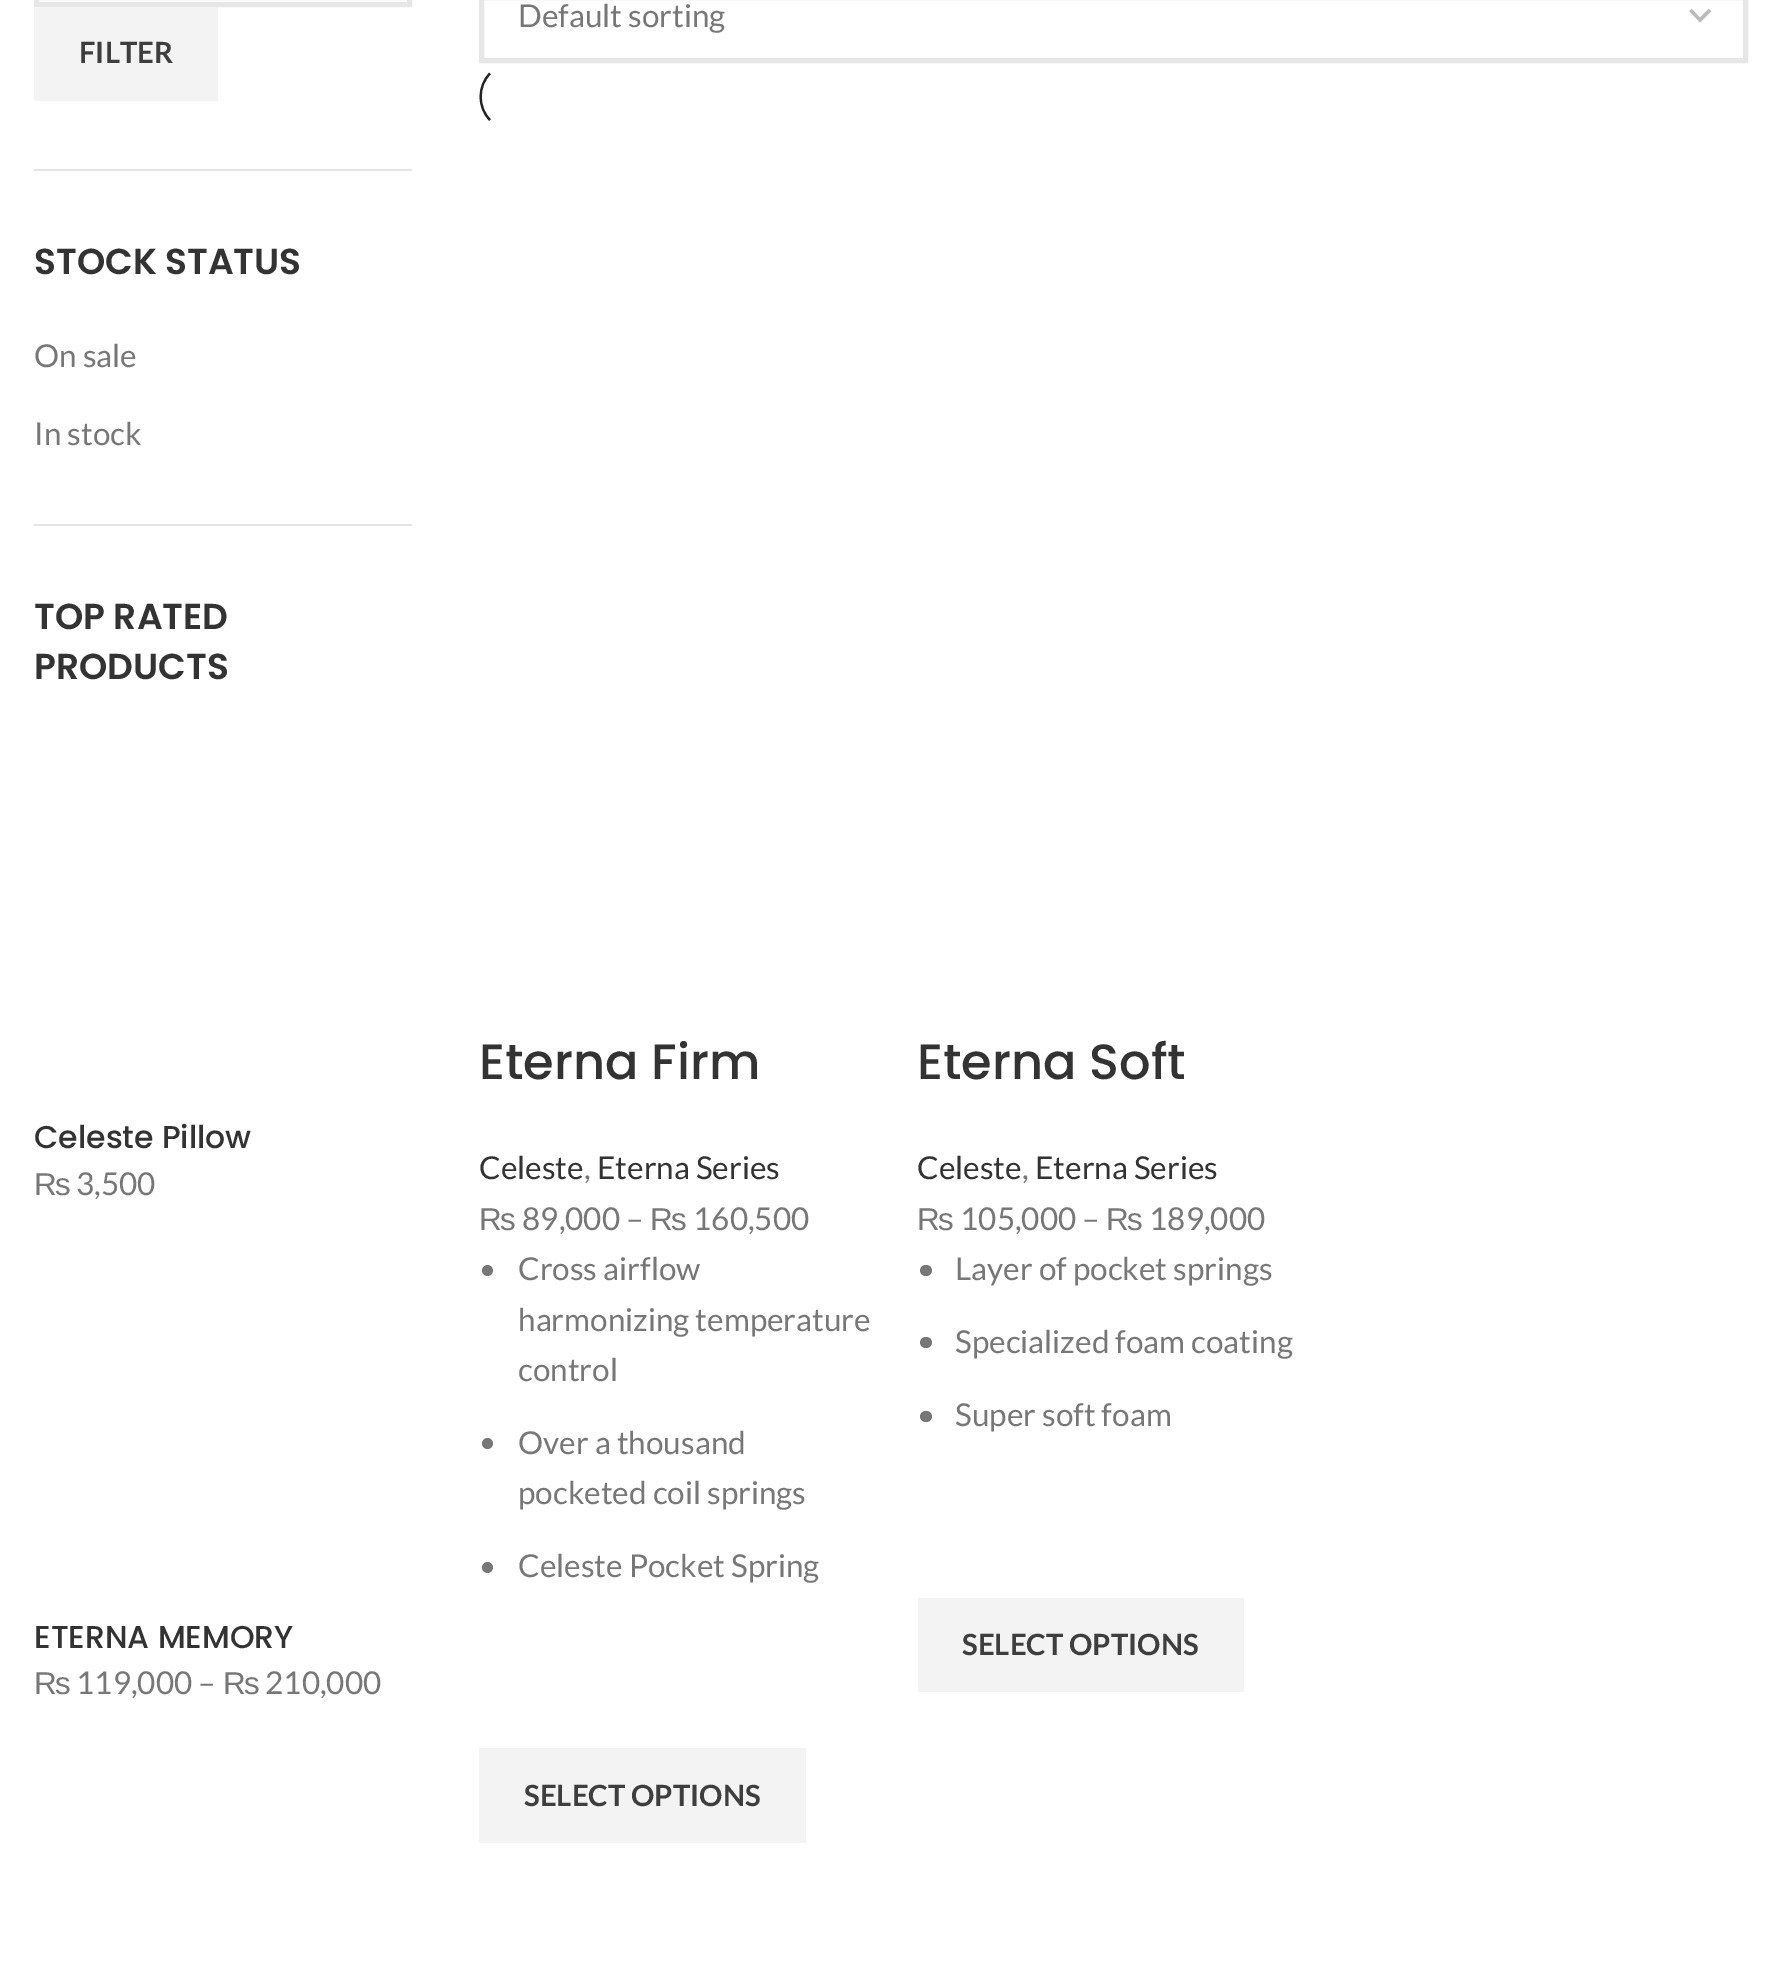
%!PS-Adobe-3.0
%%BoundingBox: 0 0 1782 1974
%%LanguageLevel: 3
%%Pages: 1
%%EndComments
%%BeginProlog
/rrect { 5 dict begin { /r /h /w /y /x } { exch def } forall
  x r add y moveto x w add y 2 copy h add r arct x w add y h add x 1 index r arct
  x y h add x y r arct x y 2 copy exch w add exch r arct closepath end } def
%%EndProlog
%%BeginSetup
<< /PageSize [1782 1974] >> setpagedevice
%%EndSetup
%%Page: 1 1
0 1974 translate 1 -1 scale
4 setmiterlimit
1 setgray
0 0 1782 1974 rectfill
0.894 setgray
34 169 378 2 rectfill
0.902 setgray
5 setlinewidth
36.5 -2.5 373 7 rectstroke
0.953 setgray
34 7 184 94 rectfill
0.894 setgray
34 524 378 2 rectfill
0.733 setgray
3.2 setlinewidth
newpath 1690.5 10 moveto 1700 20 lineto 1710 10 lineto stroke
0.902 setgray
5 setlinewidth
481.5 -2.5 1264 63 rectstroke
0.141 setgray
2.2 setlinewidth
newpath 490 120 moveto 477.5 107.5 477.5 86 490 73.5 curveto stroke
0.467 setgray
newpath 487.5 1270.5 5.5 0 360 arc closepath fill
newpath 487.5 1443.5 5.5 0 360 arc closepath fill
newpath 487.5 1567.5 5.5 0 360 arc closepath fill
0.953 setgray
479 1748 327 95 rectfill
0.467 setgray
920 1265 12 11 5.5 rrect fill
920 1337 12 11 5.5 rrect fill
920 1411 12 11 5.5 rrect fill
0.953 setgray
918 1598 326 94 rectfill
/Lato-Bold [29.25 0 0 -29.25 0 0] selectfont
0.243 setgray
79 63 moveto (FILTER) show
/Poppins-SemiBold [36 0 0 -36 0 0] selectfont
0.2 setgray
34 274 moveto (STOCK STATUS) show
/Lato-Regular [31.5 0 0 -31.5 0 0] selectfont
0.467 setgray
34 367 moveto (On sale) show
34 445 moveto (In stock) show
/Poppins-SemiBold [36 0 0 -36 0 0] selectfont
0.2 setgray
34 629 moveto (TOP RATED) show
34 679 moveto (PRODUCTS) show
/Poppins-Medium [31.5 0 0 -31.5 0 0] selectfont
34 1148 moveto (Celeste Pillow) show
/LiberationSans-Regular [31.5 0 0 -31.5 0 0] selectfont
0.467 setgray
34 1195 moveto (₨) show
/Lato-Regular [31.5 0 0 -31.5 0 0] selectfont
76 1195 moveto (3,500) show
/Poppins-Medium [31.5 0 0 -31.5 0 0] selectfont
0.2 setgray
34 1648 moveto (ETERNA MEMORY) show
/LiberationSans-Regular [31.5 0 0 -31.5 0 0] selectfont
0.467 setgray
34 1694 moveto (₨) show
/Lato-Regular [31.5 0 0 -31.5 0 0] selectfont
76 1694 moveto (119,000 –) show
/LiberationSans-Regular [31.5 0 0 -31.5 0 0] selectfont
223 1694 moveto (₨) show
/Lato-Regular [31.5 0 0 -31.5 0 0] selectfont
265 1694 moveto (210,000) show
518 27 moveto (Default sorting) show
/Poppins-Medium [49.5 0 0 -49.5 0 0] selectfont
0.2 setgray
479 1079 moveto (Eterna Firm) show
/Lato-Regular [31.5 0 0 -31.5 0 0] selectfont
479 1179 moveto (Celeste) show
0.467 setgray
584 1179 moveto (,) show
0.2 setgray
597 1179 moveto (Eterna Series) show
/LiberationSans-Regular [31.5 0 0 -31.5 0 0] selectfont
0.467 setgray
479 1230 moveto (₨) show
/Lato-Regular [31.5 0 0 -31.5 0 0] selectfont
522 1230 moveto (89,000 –) show
/LiberationSans-Regular [31.5 0 0 -31.5 0 0] selectfont
650 1230 moveto (₨) show
/Lato-Regular [31.5 0 0 -31.5 0 0] selectfont
693 1230 moveto (160,500) show
518 1280 moveto (Cross airflow) show
518 1331 moveto (harmonizing temperature) show
518 1381 moveto (control) show
518 1454 moveto (Over a thousand) show
518 1504 moveto (pocketed coil springs) show
518 1577 moveto (Celeste Pocket Spring) show
/Lato-Bold [29.25 0 0 -29.25 0 0] selectfont
0.243 setgray
524 1806 moveto (SELECT OPTIONS) show
/Poppins-Medium [49.5 0 0 -49.5 0 0] selectfont
0.2 setgray
917 1079 moveto (Eterna Soft) show
/Lato-Regular [31.5 0 0 -31.5 0 0] selectfont
917 1179 moveto (Celeste) show
0.467 setgray
1022 1179 moveto (,) show
0.2 setgray
1035 1179 moveto (Eterna Series) show
/LiberationSans-Regular [31.5 0 0 -31.5 0 0] selectfont
0.467 setgray
917 1230 moveto (₨) show
/Lato-Regular [31.5 0 0 -31.5 0 0] selectfont
960 1230 moveto (105,000 –) show
/LiberationSans-Regular [31.5 0 0 -31.5 0 0] selectfont
1106 1230 moveto (₨) show
/Lato-Regular [31.5 0 0 -31.5 0 0] selectfont
1149 1230 moveto (189,000) show
955 1280 moveto (Layer of pocket springs) show
955 1353 moveto (Specialized foam coating) show
955 1426 moveto (Super soft foam) show
/Lato-Bold [29.25 0 0 -29.25 0 0] selectfont
0.243 setgray
962 1655 moveto (SELECT OPTIONS) show
showpage
%%EOF
